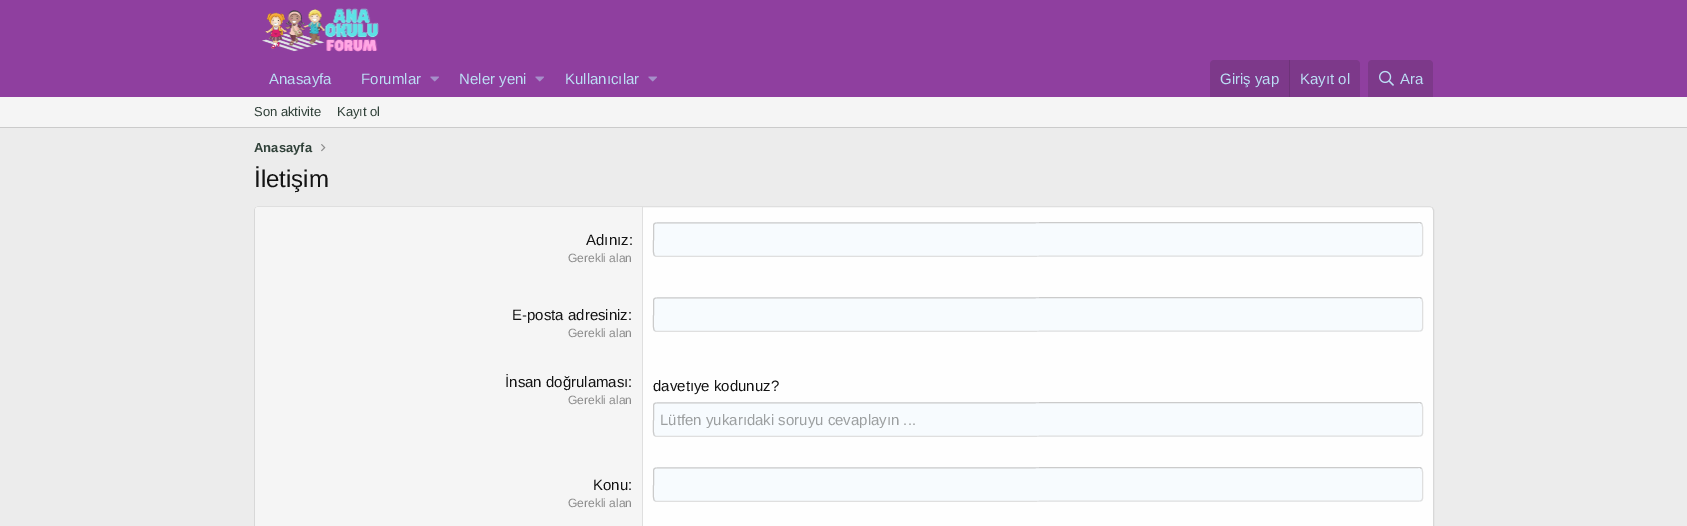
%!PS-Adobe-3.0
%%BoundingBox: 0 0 1687 526
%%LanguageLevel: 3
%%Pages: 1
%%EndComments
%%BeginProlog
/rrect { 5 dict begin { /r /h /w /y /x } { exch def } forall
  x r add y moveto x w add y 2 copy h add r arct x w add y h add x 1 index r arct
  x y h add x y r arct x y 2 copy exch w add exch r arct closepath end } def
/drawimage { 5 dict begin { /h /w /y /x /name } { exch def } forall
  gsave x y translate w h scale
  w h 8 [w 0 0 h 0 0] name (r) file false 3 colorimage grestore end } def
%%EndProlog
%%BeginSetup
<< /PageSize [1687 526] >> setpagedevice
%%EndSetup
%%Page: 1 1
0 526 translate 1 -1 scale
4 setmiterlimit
0.925 setgray
0 0 1687 526 rectfill
0.561 0.247 0.624 setrgbcolor
0 0 1687 97 rectfill
(images/1.raw) 262 8 117 44 drawimage
(images/2.raw) 430 76 9 6 drawimage
(images/2.raw) 535 76 9 6 drawimage
(images/2.raw) 648 76 9 6 drawimage
0.49 0.224 0.541 setrgbcolor
newpath 1214 60 moveto 1356 60 lineto 1358 60 1360 62 1360 64 curveto 1360 97 lineto 1210 97 lineto 1210 64 lineto 1210 62 1212 60 1214 60 curveto closepath fill
0.427 0.2 0.471 setrgbcolor
1289 60 1 37 rectfill
0.49 0.224 0.541 setrgbcolor
newpath 1372 60 moveto 1429 60 lineto 1431 60 1433 62 1433 64 curveto 1433 97 lineto 1368 97 lineto 1368 64 lineto 1368 62 1370 60 1372 60 curveto closepath fill
(images/3.raw) 1379 70 15 16 drawimage
0.961 setgray
0 97 1687 30 rectfill
0.796 setgray
0 127 1687 1 rectfill
(images/4.raw) 321 144 5 8 drawimage
0.996 setgray
254 206 1180 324 4 rrect fill
0.875 setgray
newpath 255.5 207.5 moveto 258 206.5 lineto 1430 206.5 lineto 1432.5 207.5 lineto stroke
0.847 setgray
newpath 1432.5 207.5 moveto 1433.5 210 lineto 1433.5 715 lineto 1432.5 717.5 lineto stroke
newpath 255.5 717.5 moveto 254.5 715 lineto 254.5 210 lineto 255.5 207.5 lineto stroke
0.961 setgray
newpath 258 207 moveto 643 207 lineto 643 282 lineto 255 282 lineto 255 210 lineto 255 208.5 256.5 207 258 207 curveto closepath fill
0.875 setgray
642 207 1 319 rectfill
0.969 0.984 0.996 setrgbcolor
653 222 770 35 4 rrect fill
0.875 setgray
newpath 1421.5 223.5 moveto 1423.5 226 1422.5 236.5 1422.5 239.5 curveto 1422.5 253.5 lineto 1422 255 lineto 1420.5 256 lineto 656 256.5 lineto 654.5 255.5 lineto stroke
0.796 setgray
newpath 654.5 255.5 moveto 652.5 253 653.5 242.5 653.5 239.5 curveto 653.5 225.5 lineto 654 224 lineto 655.5 223 lineto 1420 222.5 lineto 1421.5 223.5 lineto stroke
0.961 setgray
255 282 387 244 rectfill
0.969 0.984 0.996 setrgbcolor
653 297 770 35 4 rrect fill
0.875 setgray
newpath 1421.5 298.5 moveto 1423.5 301 1422.5 311.5 1422.5 314.5 curveto 1422.5 328.5 lineto 1422 330 lineto 1420.5 331 lineto 656 331.5 lineto 654.5 330.5 lineto stroke
0.796 setgray
newpath 654.5 330.5 moveto 652.5 328 653.5 317.5 653.5 314.5 curveto 653.5 300.5 lineto 654 299 lineto 655.5 298 lineto 1420 297.5 lineto 1421.5 298.5 lineto stroke
0.969 0.984 0.996 setrgbcolor
653 402 770 35 4 rrect fill
0.875 setgray
newpath 1421.5 403.5 moveto 1423.5 406 1422.5 416.5 1422.5 419.5 curveto 1422.5 433.5 lineto 1422 435 lineto 1420.5 436 lineto 656 436.5 lineto 654.5 435.5 lineto stroke
0.796 setgray
newpath 654.5 435.5 moveto 652.5 433 653.5 422.5 653.5 419.5 curveto 653.5 405.5 lineto 654 404 lineto 655.5 403 lineto 1420 402.5 lineto 1421.5 403.5 lineto stroke
0.969 0.984 0.996 setrgbcolor
653 467 770 35 4 rrect fill
0.875 setgray
newpath 1421.5 468.5 moveto 1423.5 471 1422.5 481.5 1422.5 484.5 curveto 1422.5 498.5 lineto 1422 500 lineto 1420.5 501 lineto 656 501.5 lineto 654.5 500.5 lineto stroke
0.796 setgray
newpath 654.5 500.5 moveto 652.5 498 653.5 487.5 653.5 484.5 curveto 653.5 470.5 lineto 654 469 lineto 655.5 468 lineto 1420 467.5 lineto 1421.5 468.5 lineto stroke
/LiberationSans-Regular [15 0 0 -15 0 0] selectfont
0.737 0.871 0.961 setrgbcolor
269 84 moveto (Anasayfa) show
361 84 moveto (Forumlar) show
459 84 moveto (Neler yeni) show
565 84 moveto (Kullanıcılar) show
1220 84 moveto (Giriş yap) show
1300 84 moveto (Kayıt ol) show
1400 84 moveto (Ara) show
/LiberationSans-Regular [13 0 0 -13 0 0] selectfont
0.188 0.255 0.224 setrgbcolor
254 116 moveto (Son aktivite) show
337 116 moveto (Kayıt ol) show
/LiberationSans-Bold [13 0 0 -13 0 0] selectfont
254 152 moveto (Anasayfa) show
/LiberationSans-Regular [24 0 0 -24 0 0] selectfont
0.078 setgray
254 187 moveto (İletişim) show
/LiberationSans-Regular [15 0 0 -15 0 0] selectfont
586 245 moveto (Adınız:) show
/LiberationSans-Regular [12 0 0 -12 0 0] selectfont
0.549 setgray
568 262 moveto (Gerekli alan) show
/LiberationSans-Regular [15 0 0 -15 0 0] selectfont
0.078 setgray
512 320 moveto (E-posta adresiniz:) show
/LiberationSans-Regular [12 0 0 -12 0 0] selectfont
0.549 setgray
568 337 moveto (Gerekli alan) show
/LiberationSans-Regular [15 0 0 -15 0 0] selectfont
0.078 setgray
505 387 moveto (İnsan doğrulaması:) show
/LiberationSans-Regular [12 0 0 -12 0 0] selectfont
0.549 setgray
568 404 moveto (Gerekli alan) show
/LiberationSans-Regular [15 0 0 -15 0 0] selectfont
0.078 setgray
653 391 moveto (davetıye kodunuz?) show
gsave
660 411 756 17 rectclip
0.612 0.624 0.627 setrgbcolor
660 425 moveto (Lütfen yukarıdaki soruyu cevaplayın ...) show
grestore
593 490 moveto (Konu:) show
/LiberationSans-Regular [12 0 0 -12 0 0] selectfont
0.549 setgray
568 507 moveto (Gerekli alan) show
showpage
%%EOF
